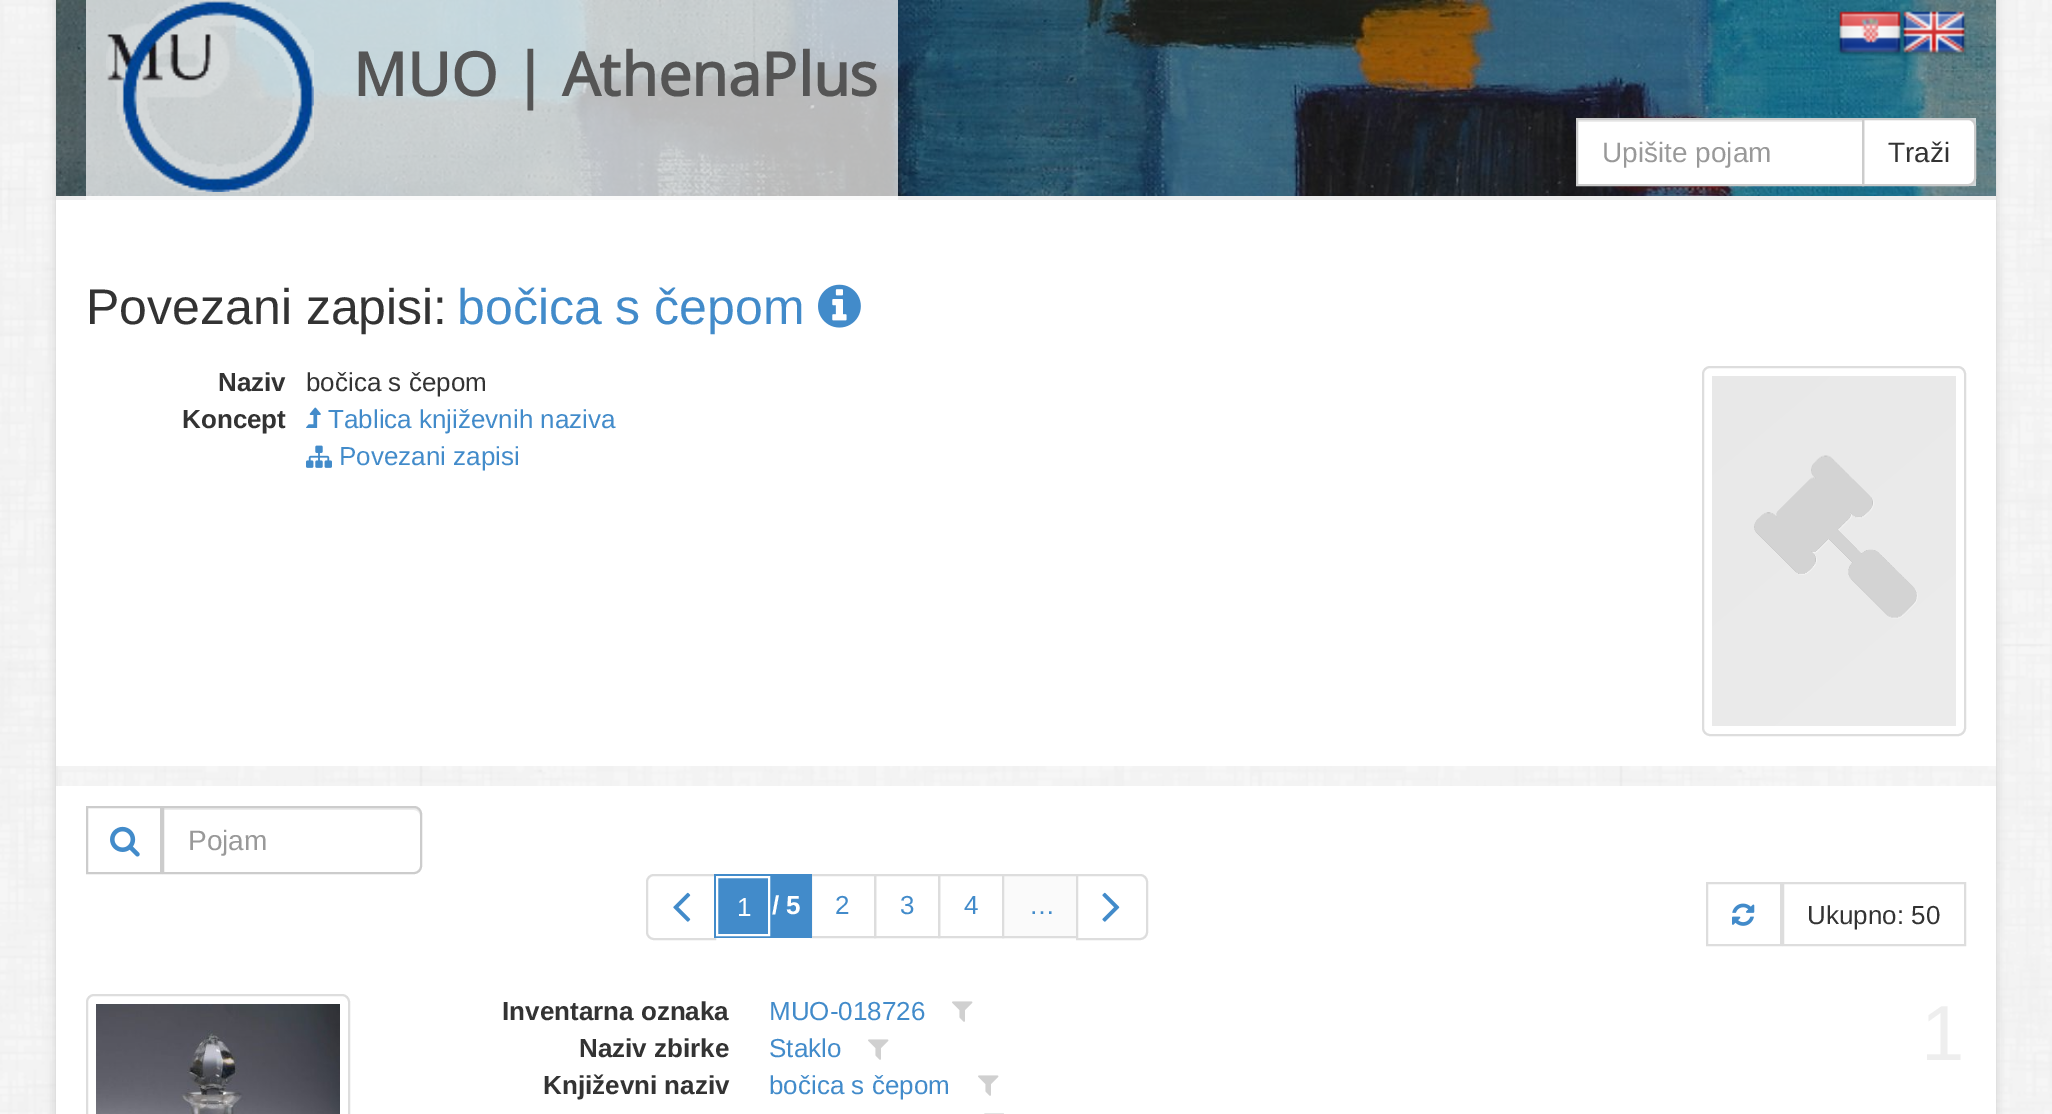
%!PS-Adobe-3.0
%%BoundingBox: 0 0 2052 1114
%%LanguageLevel: 3
%%Pages: 1
%%EndComments
%%BeginProlog
/setalpha { dup .setfillconstantalpha .setstrokeconstantalpha } def
/rrect { 5 dict begin { /r /h /w /y /x } { exch def } forall
  x r add y moveto x w add y 2 copy h add r arct x w add y h add x 1 index r arct
  x y h add x y r arct x y 2 copy exch w add exch r arct closepath end } def
/softshadow { 12 dict begin { /a /b /q /h /w /y /x } { exch def } forall gsave /was 0 def
  9 -2 -9 { dup b mul 4 div /e exch def 1 sub .425 mul 2.718 exch exp 1 add a .99 .min exch div /now exch def
    1 1 now sub 1 was sub div sub setalpha /was now def
    w h .min e 2 mul add 0 gt { x e sub y e sub w e 2 mul add h e 2 mul add
      q e add b .6 mul add w h .min 2 div e add .min 0 .max rrect fill } if } for grestore end } def
/drawimage { 5 dict begin { /h /w /y /x /name } { exch def } forall
  gsave x y translate w h scale
  w h 8 [w 0 0 h 0 0] name (r) file false 3 colorimage grestore end } def
%%EndProlog
%%BeginSetup
<< /PageSize [2052 1114] /PageUsesTransparency true >> setpagedevice
%%EndSetup
%%Page: 1 1
0 .pushpdf14devicefilter
0 1114 translate 1 -1 scale
4 setmiterlimit
1 setgray
0 0 2052 1114 rectfill
(images/1.raw) 0 0 2052 1114 drawimage
0.8 setgray
56 0 1940 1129 0 5 1 softshadow
1 setgray
56 200 1940 914 rectfill
(images/2.raw) 56 0 1940 196 drawimage
0.933 setgray
56 196 1940 4 rectfill
(images/3.raw) 1838 11 64 45 drawimage
(images/4.raw) 1902 11 64 45 drawimage
0.7 setalpha
1 setgray
86 0 812 200 rectfill
1 setalpha
(images/5.raw) 106 0 208 192 drawimage
0.7 setalpha
1968 118 8 68 rectfill
1 setalpha
1578 122 284 62 rectfill
0.925 setgray
1578 120 284 2 rectfill
1 setgray
newpath 1863 119 moveto 1968 119 lineto 1972 119 1975 122 1975 126 curveto 1975 178 lineto 1975 182 1972 185 1968 185 curveto 1863 185 lineto closepath gsave fill grestore
0.8 setgray
2 setlinewidth
stroke
1577 119 286 66 rectstroke
(images/6.raw) 818 284 43 44 drawimage
(images/7.raw) 306 407 15 21 drawimage
(images/8.raw) 306 445 26 23 drawimage
0.867 setgray
1703 367 262 368 7 rrect stroke
(images/9.raw) 1712 376 244 350 drawimage
(images/10.raw) 58 766 1938 20 drawimage
0.933 setgray
56 766 2 20 rectfill
0.8 setgray
87 807 74 66 rectstroke
(images/11.raw) 110 826 30 31 drawimage
0.925 setgray
newpath 164 810 moveto 414 810 lineto 417 810 420 813 420 816 curveto 420 812 419 808 414 808 curveto 164 808 lineto closepath fill
0.8 setgray
newpath 163 807 moveto 414 807 lineto 418 807 421 810 421 814 curveto 421 866 lineto 421 870 418 873 414 873 curveto 163 873 lineto closepath stroke
0.867 setgray
newpath 654 875 moveto 715 875 lineto 715 939 lineto 654 939 lineto 650 939 647 936 647 932 curveto 647 882 lineto 647 878 650 875 654 875 curveto closepath stroke
(images/12.raw) 673 892 18 30 drawimage
811 875 64 62 rectstroke
0.259 0.545 0.792 setrgbcolor
714 874 98 64 rectfill
1 setgray
717 877 52 58 rectstroke
0.867 setgray
875 875 64 62 rectstroke
939 875 64 62 rectstroke
0.98 setgray
1004 876 72 60 rectfill
0.867 setgray
1003 875 76 62 rectstroke
1 setgray
newpath 1077 875 moveto 1140 875 lineto 1144 875 1147 878 1147 882 curveto 1147 932 lineto 1147 936 1144 939 1140 939 curveto 1077 939 lineto closepath gsave fill grestore
0.867 setgray
stroke
(images/13.raw) 1102 892 18 30 drawimage
1707 883 74 62 rectstroke
(images/14.raw) 1732 903 23 23 drawimage
1783 883 182 62 rectstroke
87 995 262 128 7 rrect stroke
(images/15.raw) 96 1004 244 110 drawimage
(images/16.raw) 952 1001 21 21 drawimage
(images/16.raw) 868 1039 21 21 drawimage
(images/16.raw) 978 1075 21 21 drawimage
(images/17.raw) 984 1113 20 1 drawimage
/OpenSans-Bold [60 0 0 -60 0 0] selectfont
0.333 setgray
353 96 moveto (MUO | AthenaPlus) show
/LiberationSans-Regular [28 0 0 -28 0 0] selectfont
0.6 setgray
1602 162 moveto (Upišite pojam) show
0.2 setgray
1888 162 moveto (Traži) show
/LiberationSans-Regular [50 0 0 -50 0 0] selectfont
86 324 moveto (Povezani zapisi:) show
0.259 0.545 0.792 setrgbcolor
457 324 moveto (bočica s čepom) show
/LiberationSans-Bold [26 0 0 -26 0 0] selectfont
0.2 setgray
218 391 moveto (Naziv) show
/LiberationSans-Regular [26 0 0 -26 0 0] selectfont
306 391 moveto (bočica s čepom) show
/LiberationSans-Bold [26 0 0 -26 0 0] selectfont
182 428 moveto (Koncept) show
/LiberationSans-Regular [26 0 0 -26 0 0] selectfont
0.259 0.545 0.792 setrgbcolor
328 428 moveto (Tablica književnih naziva) show
339 465 moveto (Povezani zapisi) show
/LiberationSans-Regular [28 0 0 -28 0 0] selectfont
0.6 setgray
188 850 moveto (Pojam) show
/LiberationSans-Regular [26 0 0 -26 0 0] selectfont
1 setgray
737 916 moveto (1) show
/LiberationSans-Bold [26 0 0 -26 0 0] selectfont
772 914 moveto (/ 5) show
/LiberationSans-Regular [26 0 0 -26 0 0] selectfont
0.259 0.545 0.792 setrgbcolor
835 914 moveto (2) show
900 914 moveto (3) show
964 914 moveto (4) show
1029 914 moveto (…) show
0.2 setgray
1807 924 moveto (Ukupno: 50) show
/LiberationSans-Bold [26 0 0 -26 0 0] selectfont
502 1020 moveto (Inventarna oznaka) show
/LiberationSans-Regular [26 0 0 -26 0 0] selectfont
0.259 0.545 0.792 setrgbcolor
769 1020 moveto (MUO-018726) show
/LiberationSans-Bold [26 0 0 -26 0 0] selectfont
0.2 setgray
579 1057 moveto (Naziv zbirke) show
/LiberationSans-Regular [26 0 0 -26 0 0] selectfont
0.259 0.545 0.792 setrgbcolor
769 1057 moveto (Staklo) show
/LiberationSans-Bold [26 0 0 -26 0 0] selectfont
0.2 setgray
543 1094 moveto (Književni naziv) show
/LiberationSans-Regular [26 0 0 -26 0 0] selectfont
0.259 0.545 0.792 setrgbcolor
769 1094 moveto (bočica s čepom) show
/LiberationSans-Regular [78 0 0 -78 0 0] selectfont
0.933 setgray
1921 1060 moveto (1) show
.poppdf14devicefilter showpage
%%EOF
